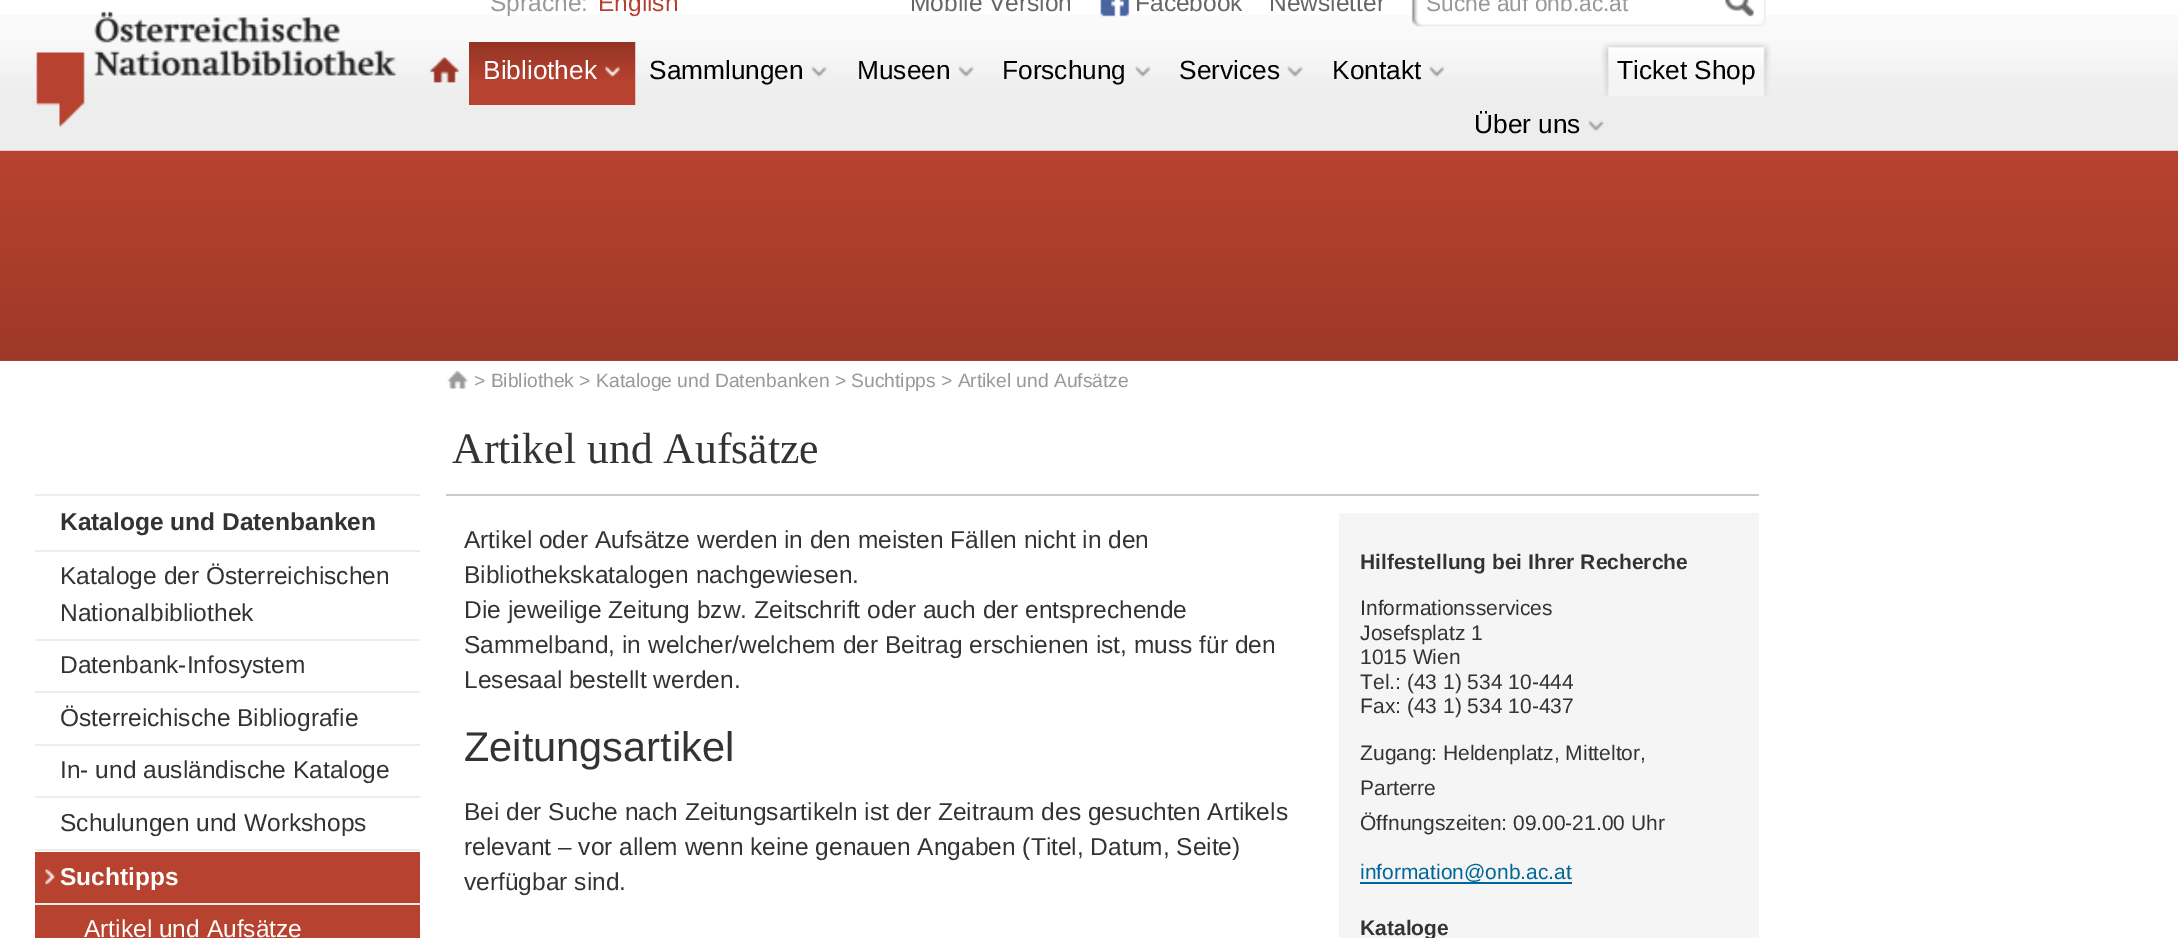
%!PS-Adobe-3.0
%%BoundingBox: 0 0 2178 938
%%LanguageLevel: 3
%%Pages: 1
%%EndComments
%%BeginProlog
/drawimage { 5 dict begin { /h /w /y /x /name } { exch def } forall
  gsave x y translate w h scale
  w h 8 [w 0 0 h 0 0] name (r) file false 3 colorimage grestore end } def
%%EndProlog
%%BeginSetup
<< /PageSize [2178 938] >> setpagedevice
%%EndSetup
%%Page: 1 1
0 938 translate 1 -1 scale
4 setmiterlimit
1 setgray
0 0 2178 938 rectfill
0.718 0.259 0.184 setrgbcolor
0 360 2178 1 rectfill
(images/15.raw) 0 150 2178 211 drawimage
(images/1.raw) 0 15 2178 136 drawimage
(images/2.raw) 1100 0 30 17 drawimage
(images/3.raw) 1411 0 355 27 drawimage
(images/4.raw) 1725 0 29 17 drawimage
(images/5.raw) 36 11 360 116 drawimage
(images/6.raw) 430 57 29 26 drawimage
(images/7.raw) 469 42 167 63 drawimage
(images/8.raw) 605 66 15 12 drawimage
(images/9.raw) 811 66 16 12 drawimage
(images/10.raw) 958 66 16 12 drawimage
(images/11.raw) 1135 66 16 12 drawimage
(images/9.raw) 1287 66 16 12 drawimage
(images/11.raw) 1429 66 16 12 drawimage
(images/12.raw) 1601 42 153 54 drawimage
(images/13.raw) 1753 42 18 54 drawimage
(images/14.raw) 1588 120 16 12 drawimage
(images/16.raw) 447 370 21 19 drawimage
0.929 setgray
35 494 385 2 rectfill
35 550 385 2 rectfill
35 639 385 2 rectfill
35 691 385 2 rectfill
35 744 385 2 rectfill
35 796 385 2 rectfill
35 849 385 2 rectfill
0.718 0.259 0.184 setrgbcolor
35 852 385 51 rectfill
(images/17.raw) 45 869 10 16 drawimage
0.929 setgray
35 903 385 2 rectfill
0.718 0.259 0.184 setrgbcolor
35 905 385 33 rectfill
0.8 setgray
446 494 1313 2 rectfill
0.961 setgray
1339 513 420 425 rectfill
0 0.4 0.6 setrgbcolor
1360 882 212 2 rectfill
/LiberationSans-Regular [24.5 0 0 -24.5 0 0] selectfont
0.6 setgray
490 11 moveto (Sprache:) show
0.718 0.255 0.18 setrgbcolor
598 11 moveto (English) show
0.4 setgray
910 11 moveto (Mobile Version) show
1135 11 moveto (Facebook) show
1269 11 moveto (Newsletter) show
/LiberationSans-Regular [22.75 0 0 -22.75 0 0] selectfont
0.6 setgray
1426 11 moveto (Suche auf onb.ac.at) show
/LiberationSans-Regular [26.25 0 0 -26.25 0 0] selectfont
1 setgray
483 79 moveto (Bibliothek) show
0 setgray
649 79 moveto (Sammlungen) show
857 79 moveto (Museen) show
1002 79 moveto (Forschung) show
1179 79 moveto (Services) show
1332 79 moveto (Kontakt) show
1617 79 moveto (Ticket Shop) show
1474 133 moveto (Über uns) show
/LiberationSans-Regular [19.25 0 0 -19.25 0 0] selectfont
0.6 setgray
474 387 moveto (> Bibliothek > Kataloge und Datenbanken > Suchtipps > Artikel und Aufsätze) show
/LiberationSans-Bold [24.5 0 0 -24.5 0 0] selectfont
0.2 setgray
60 530 moveto (Kataloge und Datenbanken) show
/LiberationSans-Regular [24.5 0 0 -24.5 0 0] selectfont
60 584 moveto (Kataloge der Österreichischen) show
60 621 moveto (Nationalbibliothek) show
60 673 moveto (Datenbank-Infosystem) show
60 726 moveto (Österreichische Bibliografie) show
60 778 moveto (In- und ausländische Kataloge) show
60 831 moveto (Schulungen und Workshops) show
/LiberationSans-Bold [24.5 0 0 -24.5 0 0] selectfont
1 setgray
60 885 moveto (Suchtipps) show
/LiberationSans-Regular [24.5 0 0 -24.5 0 0] selectfont
84 937 moveto (Artikel und Aufsätze) show
/LiberationSerif-Regular [43.75 0 0 -43.75 0 0] selectfont
0.2 setgray
452 463 moveto (Artikel und Aufsätze) show
/LiberationSans-Regular [24.5 0 0 -24.5 0 0] selectfont
464 548 moveto (Artikel oder Aufsätze werden in den meisten Fällen nicht in den) show
464 583 moveto (Bibliothekskatalogen nachgewiesen.) show
464 618 moveto (Die jeweilige Zeitung bzw. Zeitschrift oder auch der entsprechende) show
464 653 moveto (Sammelband, in welcher/welchem der Beitrag erschienen ist, muss für den) show
464 688 moveto (Lesesaal bestellt werden.) show
/LiberationSans-Regular [41.5 0 0 -41.5 0 0] selectfont
464 761 moveto (Zeitungsartikel) show
/LiberationSans-Regular [24.5 0 0 -24.5 0 0] selectfont
464 820 moveto (Bei der Suche nach Zeitungsartikeln ist der Zeitraum des gesuchten Artikels) show
464 855 moveto (relevant – vor allem wenn keine genauen Angaben \(Titel, Datum, Seite\)) show
464 890 moveto (verfügbar sind.) show
/LiberationSans-Bold [21 0 0 -21 0 0] selectfont
1360 569 moveto (Hilfestellung bei Ihrer Recherche) show
/LiberationSans-Regular [21 0 0 -21 0 0] selectfont
1360 615 moveto (Informationsservices) show
1360 640 moveto (Josefsplatz 1) show
1360 664 moveto (1015 Wien) show
1360 689 moveto (Tel.: \(43 1\) 534 10-444) show
1360 713 moveto (Fax: \(43 1\) 534 10-437) show
1360 760 moveto (Zugang: Heldenplatz, Mitteltor,) show
1360 795 moveto (Parterre) show
1360 830 moveto (Öffnungszeiten: 09.00-21.00 Uhr) show
0 0.4 0.6 setrgbcolor
1360 879 moveto (information@onb.ac.at) show
/LiberationSans-Bold [21 0 0 -21 0 0] selectfont
0.2 setgray
1360 935 moveto (Kataloge) show
showpage
%%EOF
